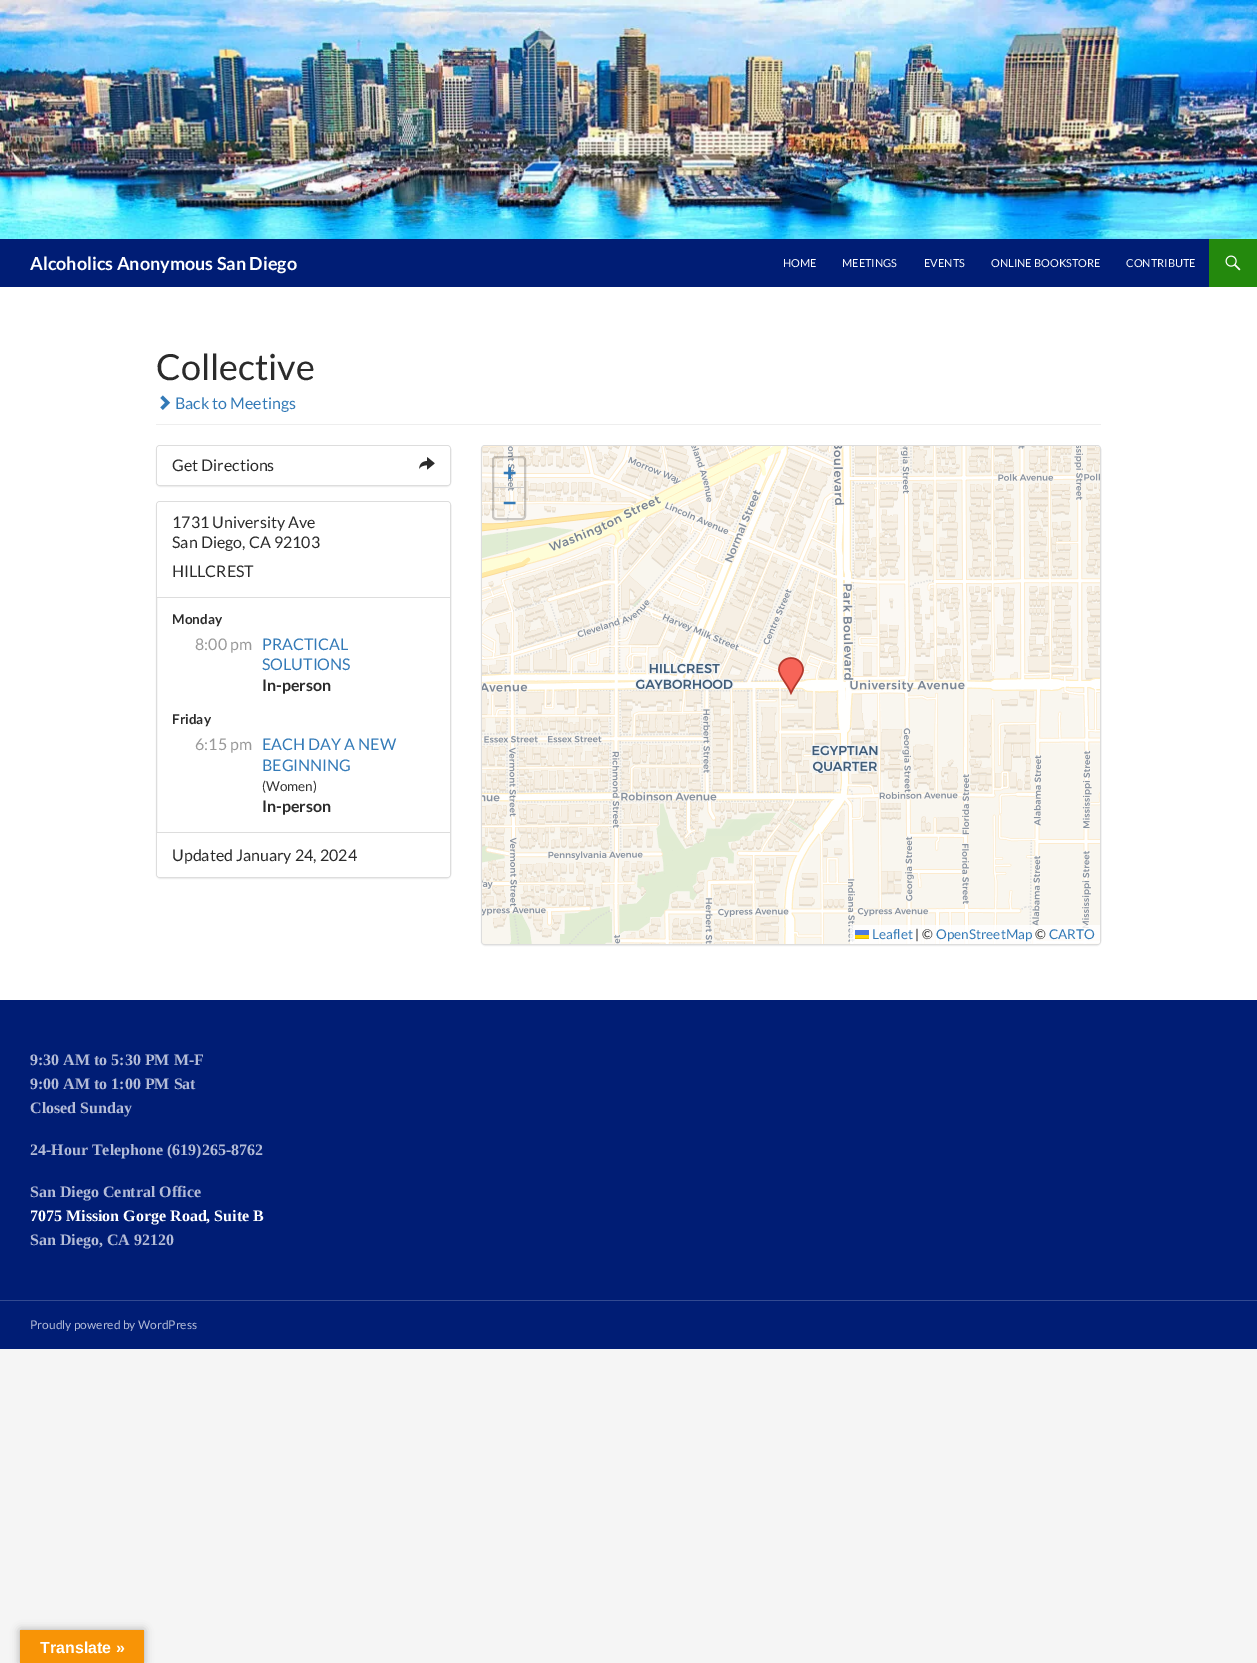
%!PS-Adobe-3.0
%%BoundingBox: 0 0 1257 1663
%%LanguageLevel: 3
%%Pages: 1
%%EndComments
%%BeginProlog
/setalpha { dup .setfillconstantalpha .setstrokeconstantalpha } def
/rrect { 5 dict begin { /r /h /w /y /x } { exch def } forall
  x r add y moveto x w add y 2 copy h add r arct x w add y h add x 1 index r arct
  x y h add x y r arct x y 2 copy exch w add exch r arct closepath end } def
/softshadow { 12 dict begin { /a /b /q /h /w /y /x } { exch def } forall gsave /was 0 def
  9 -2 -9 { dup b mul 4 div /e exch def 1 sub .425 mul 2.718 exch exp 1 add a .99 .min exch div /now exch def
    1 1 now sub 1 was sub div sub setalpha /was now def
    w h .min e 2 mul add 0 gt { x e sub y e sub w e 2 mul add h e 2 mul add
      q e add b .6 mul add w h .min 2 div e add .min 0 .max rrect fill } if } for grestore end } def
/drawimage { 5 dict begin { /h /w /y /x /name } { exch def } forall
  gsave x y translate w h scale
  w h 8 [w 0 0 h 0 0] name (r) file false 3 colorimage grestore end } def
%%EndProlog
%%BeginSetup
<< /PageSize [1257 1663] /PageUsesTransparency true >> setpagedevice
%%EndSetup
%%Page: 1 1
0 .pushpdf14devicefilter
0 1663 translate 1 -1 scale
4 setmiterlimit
0.961 setgray
0 0 1257 1663 rectfill
1 setgray
0 287 1257 713 rectfill
(images/1.raw) 0 0 1257 239 drawimage
0 0.114 0.459 setrgbcolor
0 239 1209 48 rectfill
0.141 0.537 0.051 setrgbcolor
1209 239 48 48 rectfill
(images/2.raw) 1225 255 16 16 drawimage
0.933 setgray
156 424 945 1 rectfill
(images/3.raw) 160 395 11 15 drawimage
0 setgray
156 446 295 41 4 0.5 0.05 softshadow
0.867 setgray
156.5 445.5 294 40 3.5 rrect stroke
1 setgray
157 446 293 39 3 rrect fill
(images/4.raw) 419 457 16 13 drawimage
0 setgray
156 502 295 377 4 0.5 0.05 softshadow
1 setgray
156.5 501.5 294 376 3.5 rrect gsave fill grestore
0.867 setgray
stroke
1 setgray
newpath 160 502 moveto 447 502 lineto 448.5 502 450 503.5 450 505 curveto 450 598 lineto 157 598 lineto 157 505 lineto 157 503.5 158.5 502 160 502 curveto closepath fill
0.867 setgray
157 597 293 1 rectfill
1 setgray
newpath 157 832 moveto 450 832 lineto 450 874 lineto 450 875.5 448.5 877 447 877 curveto 160 877 lineto 158.5 877 157 875.5 157 874 curveto closepath fill
0.867 setgray
157 832 293 1 rectfill
0 setgray
481 446 620 500 4 0.5 0.05 softshadow
0.867 setgray
481.5 445.5 619 499 3.5 rrect stroke
(images/5.raw) 482 446 65 134 drawimage
(images/6.raw) 547 446 256 134 drawimage
(images/7.raw) 803 446 256 134 drawimage
(images/8.raw) 1059 446 41 134 drawimage
(images/9.raw) 482 580 65 256 drawimage
(images/10.raw) 547 580 256 256 drawimage
(images/11.raw) 803 580 256 256 drawimage
(images/12.raw) 1059 580 41 256 drawimage
(images/13.raw) 482 836 65 108 drawimage
(images/14.raw) 547 836 256 108 drawimage
(images/15.raw) 803 836 256 108 drawimage
(images/16.raw) 1059 836 41 108 drawimage
(images/17.raw) 778 657 26 38 drawimage
0.2 setalpha
0 setgray
2 setlinewidth
493 457 32 62 3 rrect stroke
1 setalpha
0.8 setgray
494 487 30 1 rectfill
0.8 setalpha
1 setgray
newpath 850 925 moveto 1100 925 lineto 1100 941 lineto 1100 942.5 1098.5 944 1097 944 curveto 850 944 lineto closepath fill
1 setalpha
0.298 0.482 0.882 setrgbcolor
855 930 14 5 rectfill
1 0.835 0 setrgbcolor
855 935 14 3 rectfill
0.878 0.737 0 setrgbcolor
855 938 14 1 rectfill
0 0.114 0.459 setrgbcolor
0 1000 1257 349 rectfill
0.2 0.29 0.569 setrgbcolor
0 1300 1257 1 rectfill
0 setgray
20 1630 124 33 0 4.5 0.3 softshadow
0.973 0.58 0.024 setrgbcolor
20 1630 124 33 rectfill
/Lato-Bold [18 0 0 -18 0 0] selectfont
1 setgray
30 270 moveto (Alcoholics Anonymous San Diego) show
/Lato-Regular [11 0 0 -11 0 0] selectfont
783 267 moveto (HOME) show
842 267 moveto (MEETINGS) show
924 267 moveto (EVENTS) show
991 267 moveto (ONLINE BOOKSTORE) show
1126 267 moveto (CONTRIBUTE) show
/Lato-Regular [36 0 0 -36 0 0] selectfont
0.169 setgray
156 380 moveto (Collective) show
/Lato-Regular [16 0 0 -16 0 0] selectfont
0.2 0.478 0.718 setrgbcolor
175 409 moveto (Back to Meetings) show
0.169 setgray
172 471 moveto (Get Directions) show
172 528 moveto (1731 University Ave) show
172 548 moveto (San Diego, CA 92103) show
172 577 moveto (HILLCREST) show
/Lato-Bold [13.5 0 0 -13.5 0 0] selectfont
172 624 moveto (Monday) show
/Lato-Regular [16 0 0 -16 0 0] selectfont
0.6 setgray
195 650 moveto (8:00 pm) show
0.2 0.478 0.718 setrgbcolor
262 650 moveto (PRACTICAL) show
262 670 moveto (SOLUTIONS) show
/Lato-Bold [16 0 0 -16 0 0] selectfont
0.169 setgray
262 691 moveto (In-person) show
/Lato-Bold [13.5 0 0 -13.5 0 0] selectfont
172 724 moveto (Friday) show
/Lato-Regular [16 0 0 -16 0 0] selectfont
0.6 setgray
195 750 moveto (6:15 pm) show
0.2 0.478 0.718 setrgbcolor
262 750 moveto (EACH DAY A NEW) show
262 771 moveto (BEGINNING) show
/Lato-Regular [13.5 0 0 -13.5 0 0] selectfont
0.2 setgray
262 791 moveto (\(Women\)) show
/Lato-Bold [16 0 0 -16 0 0] selectfont
0.169 setgray
262 812 moveto (In-person) show
/Lato-Regular [16 0 0 -16 0 0] selectfont
172 861 moveto (Updated January 24, 2024) show
/DejaVuSansMono-Bold [22 0 0 -22 0 0] selectfont
0.2 0.478 0.718 setrgbcolor
503 480 moveto (+) show
503 510 moveto (−) show
/Lato-Regular [13.5 0 0 -13.5 0 0] selectfont
872 939 moveto (Leaflet) show
0.2 setgray
915 939 moveto (| ©) show
0.2 0.478 0.718 setrgbcolor
936 939 moveto (OpenStreetMap) show
0.2 setgray
1035 939 moveto (©) show
0.2 0.478 0.718 setrgbcolor
1049 939 moveto (CARTO) show
/LiberationSerif-Bold [16 0 0 -16 0 0] selectfont
0.702 0.733 0.839 setrgbcolor
30 1065 moveto (9:30 AM to 5:30 PM M-F) show
30 1089 moveto (9:00 AM to 1:00 PM Sat) show
30 1113 moveto (Closed Sunday) show
30 1155 moveto (24-Hour Telephone \(619\)265-8762) show
30 1197 moveto (San Diego Central Office) show
1 setgray
30 1221 moveto (7075 Mission Gorge Road, Suite B) show
0.702 0.733 0.839 setrgbcolor
30 1245 moveto (San Diego, CA 92120) show
/Lato-Regular [12 0 0 -12 0 0] selectfont
30 1329 moveto (Proudly powered by WordPress) show
/LiberationSans-Bold [16 0 0 -16 0 0] selectfont
1 setgray
40 1653 moveto (Translate ») show
.poppdf14devicefilter showpage
%%EOF
